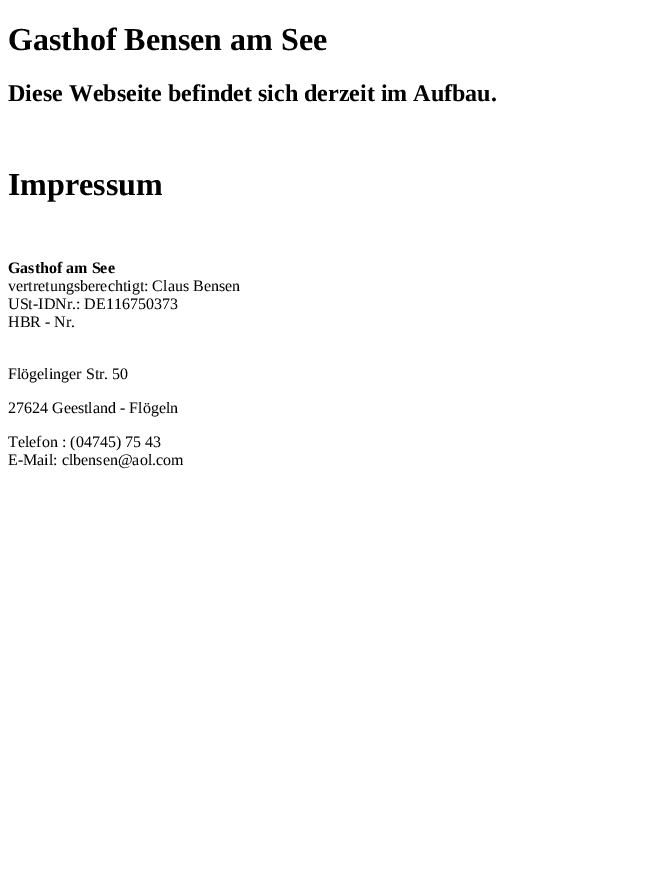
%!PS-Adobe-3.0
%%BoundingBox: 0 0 652 889
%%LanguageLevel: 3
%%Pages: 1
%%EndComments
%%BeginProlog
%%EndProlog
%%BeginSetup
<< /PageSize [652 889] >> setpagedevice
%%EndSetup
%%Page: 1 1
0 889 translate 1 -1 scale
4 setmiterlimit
1 setgray
0 0 652 889 rectfill
/LiberationSerif-Bold [32 0 0 -32 0 0] selectfont
0 setgray
8 50 moveto (Gasthof Bensen am See) show
/LiberationSerif-Bold [24 0 0 -24 0 0] selectfont
8 101 moveto (Diese Webseite befindet sich derzeit im Aufbau.) show
/LiberationSerif-Bold [32 0 0 -32 0 0] selectfont
8 195 moveto (Impressum) show
/LiberationSerif-Bold [16 0 0 -16 0 0] selectfont
8 273 moveto (Gasthof am See) show
/LiberationSerif-Regular [16 0 0 -16 0 0] selectfont
8 291 moveto (vertretungsberechtigt: Claus Bensen) show
8 309 moveto (USt-IDNr.: DE116750373) show
8 327 moveto (HBR - Nr.) show
8 379 moveto (Flögelinger Str. 50) show
8 413 moveto (27624 Geestland - Flögeln) show
8 447 moveto (Telefon : \(04745\) 75 43) show
8 465 moveto (E-Mail: clbensen@aol.com) show
showpage
%%EOF
